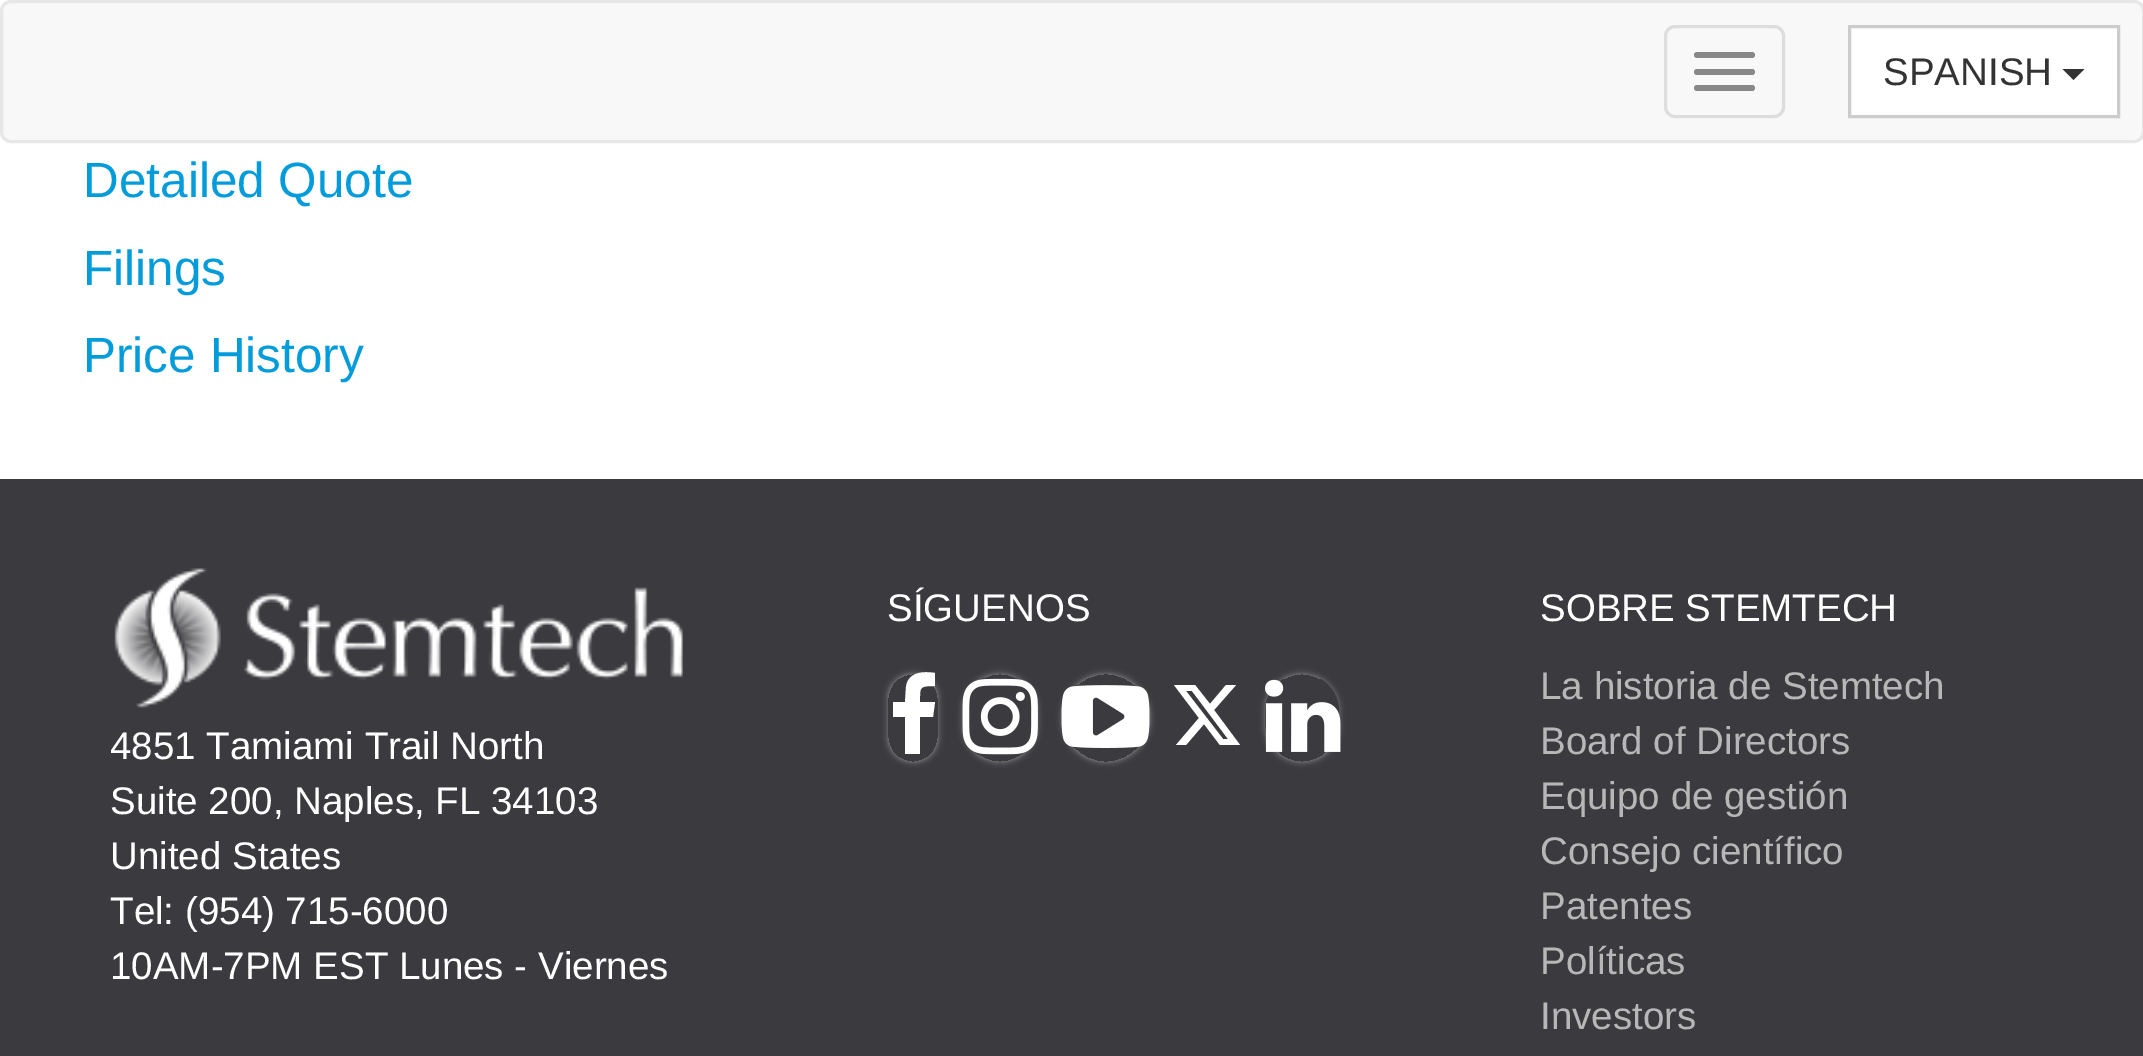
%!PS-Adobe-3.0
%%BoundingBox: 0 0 2143 1056
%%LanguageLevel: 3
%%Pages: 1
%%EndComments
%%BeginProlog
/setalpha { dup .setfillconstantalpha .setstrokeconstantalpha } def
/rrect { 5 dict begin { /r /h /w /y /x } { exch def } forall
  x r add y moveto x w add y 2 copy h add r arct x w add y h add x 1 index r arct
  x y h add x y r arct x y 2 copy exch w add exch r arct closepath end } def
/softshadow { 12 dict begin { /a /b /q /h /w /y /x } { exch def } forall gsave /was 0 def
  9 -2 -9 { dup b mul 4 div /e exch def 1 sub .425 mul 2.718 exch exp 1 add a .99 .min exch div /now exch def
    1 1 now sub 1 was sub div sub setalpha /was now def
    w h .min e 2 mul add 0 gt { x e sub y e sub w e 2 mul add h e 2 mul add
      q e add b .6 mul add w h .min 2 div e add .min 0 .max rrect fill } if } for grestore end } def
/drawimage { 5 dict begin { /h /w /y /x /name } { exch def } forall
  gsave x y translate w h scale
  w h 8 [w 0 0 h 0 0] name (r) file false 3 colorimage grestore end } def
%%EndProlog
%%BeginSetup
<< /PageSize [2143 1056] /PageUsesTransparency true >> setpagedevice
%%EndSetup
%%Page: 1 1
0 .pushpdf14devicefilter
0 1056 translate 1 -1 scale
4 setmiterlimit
1 setgray
0 0 2143 1056 rectfill
0.973 setgray
1.5 1.5 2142 140 9.5 rrect gsave fill grestore
0.906 setgray
3 setlinewidth
stroke
0.867 setgray
1665.5 26.5 118 90 9.5 rrect stroke
0.533 setgray
1694 52 61 6 3 rrect fill
1694 69 61 6 3 rrect fill
1694 85 61 6 3 rrect fill
1 setgray
newpath 1849.5 26.5 moveto 2118.5 26.5 lineto 2118.5 116.5 lineto 1849.5 116.5 lineto closepath gsave fill grestore
0.8 setgray
stroke
0.2 setgray
newpath 2062.5 69 moveto 2084.5 69 lineto 2073.5 80 lineto closepath fill
0.231 0.227 0.243 setrgbcolor
0 479 2143 577 rectfill
(images/1.raw) 114 568 569 140 drawimage
gsave
newpath 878 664 moveto 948 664 lineto 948 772 lineto 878 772 lineto closepath 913 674 moveto 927 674 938 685 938 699 curveto 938 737 lineto 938 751 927 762 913 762 curveto 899 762 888 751 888 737 curveto 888 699 lineto 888 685 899 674 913 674 curveto closepath eoclip newpath
0.533 setgray
888 674 50 88 25 3 1 softshadow
grestore
1 setgray
newpath 935 673 moveto 935 686 lineto 919 686 920 687 920 702 curveto 935 702 lineto 933 717 lineto 920 717 lineto 920 754 lineto 905 754 lineto 905 717 lineto 893 717 lineto 893 702 lineto 905 702 lineto 906 687 lineto 908 672 923 671 935 673 curveto closepath fill
gsave
newpath 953 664 moveto 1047 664 lineto 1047 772 lineto 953 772 lineto closepath 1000 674 moveto 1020.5 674 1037 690.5 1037 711 curveto 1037 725 lineto 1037 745.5 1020.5 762 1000 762 curveto 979.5 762 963 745.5 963 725 curveto 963 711 lineto 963 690.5 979.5 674 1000 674 curveto closepath eoclip newpath
0.533 setgray
963 674 74 88 37 3 1 softshadow
grestore
(images/2.raw) 962 678 76 77 drawimage
gsave
newpath 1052 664 moveto 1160 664 lineto 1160 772 lineto 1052 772 lineto closepath 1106 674 moveto 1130.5 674 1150 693.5 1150 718 curveto 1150 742.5 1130.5 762 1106 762 curveto 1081.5 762 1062 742.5 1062 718 curveto 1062 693.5 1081.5 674 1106 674 curveto closepath eoclip newpath
0.533 setgray
1062 674 88 88 44 3 1 softshadow
grestore
(images/3.raw) 1061 685 89 63 drawimage
newpath 1226 685 moveto 1236 685 lineto 1214 710 lineto 1240 745 lineto 1220 745 lineto 1204 724 lineto 1186 745 lineto 1176 745 lineto 1199 718 lineto 1174 685 lineto 1195 685 lineto 1210 704 lineto closepath 1223 739 moveto 1228 739 lineto 1192 691 lineto 1186 691 lineto closepath fill
gsave
newpath 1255 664 moveto 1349 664 lineto 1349 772 lineto 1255 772 lineto closepath 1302 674 moveto 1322.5 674 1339 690.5 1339 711 curveto 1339 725 lineto 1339 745.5 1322.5 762 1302 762 curveto 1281.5 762 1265 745.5 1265 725 curveto 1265 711 lineto 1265 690.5 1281.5 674 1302 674 curveto closepath eoclip newpath
0.533 setgray
1265 674 74 88 37 3 1 softshadow
grestore
(images/4.raw) 1265 679 76 73 drawimage
/LiberationSans-Regular [38.5 0 0 -38.5 0 0] selectfont
0.2 setgray
1883 85 moveto (SPANISH) show
/LiberationSans-Regular [49.5 0 0 -49.5 0 0] selectfont
0.012 0.612 0.859 setrgbcolor
83 197 moveto (Detailed Quote) show
83 285 moveto (Filings) show
83 372 moveto (Price History) show
/LiberationSans-Regular [38.5 0 0 -38.5 0 0] selectfont
1 setgray
110 759 moveto (4851 Tamiami Trail North) show
110 814 moveto (Suite 200, Naples, FL 34103) show
110 869 moveto (United States) show
110 924 moveto (Tel: \(954\) 715-6000) show
110 979 moveto (10AM-7PM EST Lunes - Viernes) show
887 621 moveto (SÍGUENOS) show
1540 621 moveto (SOBRE STEMTECH) show
0.718 setgray
1540 699 moveto (La historia de Stemtech) show
1540 754 moveto (Board of Directors) show
1540 809 moveto (Equipo de gestión) show
1540 864 moveto (Consejo científico) show
1540 919 moveto (Patentes) show
1540 974 moveto (Políticas) show
1540 1029 moveto (Investors) show
.poppdf14devicefilter showpage
%%EOF
